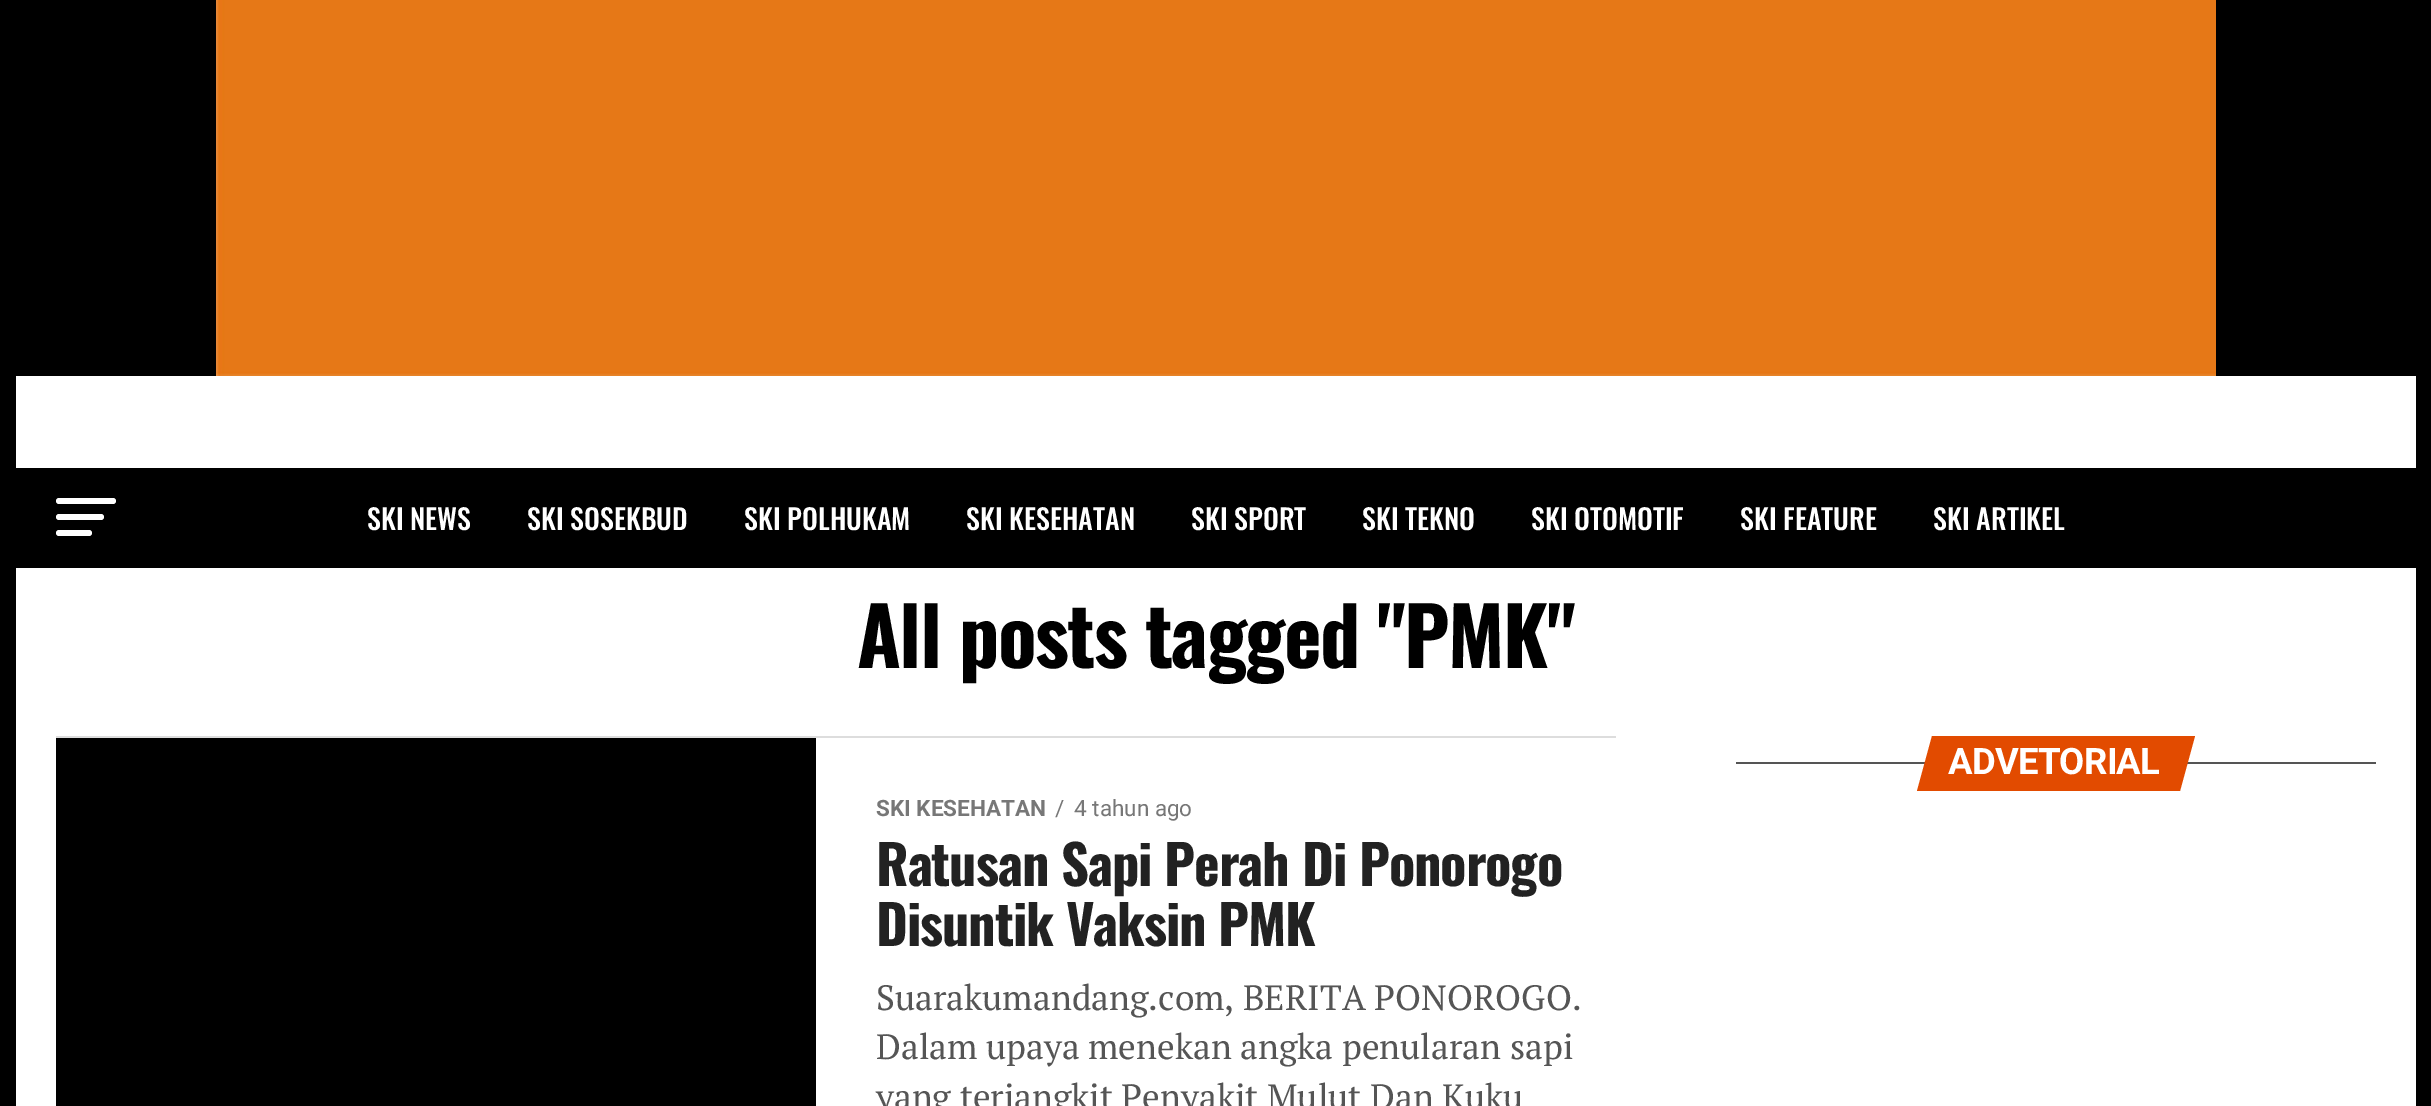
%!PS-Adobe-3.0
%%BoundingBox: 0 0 2431 1106
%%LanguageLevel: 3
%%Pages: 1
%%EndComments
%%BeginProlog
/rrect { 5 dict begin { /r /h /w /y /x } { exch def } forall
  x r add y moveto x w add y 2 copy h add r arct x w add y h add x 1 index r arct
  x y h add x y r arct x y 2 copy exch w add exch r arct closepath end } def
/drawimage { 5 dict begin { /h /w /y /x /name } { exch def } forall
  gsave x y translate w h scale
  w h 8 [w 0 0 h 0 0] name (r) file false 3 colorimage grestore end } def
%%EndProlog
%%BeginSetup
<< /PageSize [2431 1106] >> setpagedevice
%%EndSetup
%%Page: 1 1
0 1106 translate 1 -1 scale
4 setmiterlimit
0 setgray
0 0 2431 1106 rectfill
(images/1.raw) 216 0 2000 376 drawimage
1 setgray
16 376 2400 92 rectfill
56 498 60 6 3 rrect fill
56 514 48 6 3 rrect fill
56 530 36 6 3 rrect fill
16 568 2400 538 rectfill
0.333 setgray
1736 762 640 2 rectfill
0.886 0.294 0 setrgbcolor
newpath 1932 736 moveto 2195 736 lineto 2180 791 lineto 1917 791 lineto closepath fill
0.867 setgray
56 736 1560 2 rectfill
0 setgray
56 738 760 368 rectfill
/Oswald-Medium [28 0 0 -28 0 0] selectfont
1 setgray
367 530 moveto (SKI NEWS) show
527 530 moveto (SKI SOSEKBUD) show
744 530 moveto (SKI POLHUKAM) show
966 530 moveto (SKI KESEHATAN) show
1191 530 moveto (SKI SPORT) show
1362 530 moveto (SKI TEKNO) show
1531 530 moveto (SKI OTOMOTIF) show
1740 530 moveto (SKI FEATURE) show
1933 530 moveto (SKI ARTIKEL) show
/Oswald-Bold [80 0 0 -80 0 0] selectfont
0 setgray
857 668 moveto -1.6 0 (All posts tagged "PMK") ashow
/Roboto-Bold [36.5 0 0 -36.5 0 0] selectfont
1 setgray
1948 774 moveto -0.75 0 (ADVETORIAL) ashow
/Roboto-Bold [22.5 0 0 -22.5 0 0] selectfont
0.467 setgray
876 816 moveto (SKI KESEHATAN) show
/Roboto-Regular [22.5 0 0 -22.5 0 0] selectfont
1055 816 moveto (/) show
1074 816 moveto (4 tahun ago) show
/Oswald-Bold [54.4 0 0 -54.4 0 0] selectfont
0.133 setgray
876 886 moveto -1.1 0 (Ratusan Sapi Perah Di Ponorogo) ashow
876 946 moveto -1.1 0 (Disuntik Vaksin PMK) ashow
/PTSerif-Regular [35.2 0 0 -35.2 0 0] selectfont
0.333 setgray
876 1010 moveto (Suarakumandang.com, BERITA PONOROGO.) show
876 1059 moveto (Dalam upaya menekan angka penularan sapi) show
876 1109 moveto (yang terjangkit Penyakit Mulut Dan Kuku) show
showpage
%%EOF
